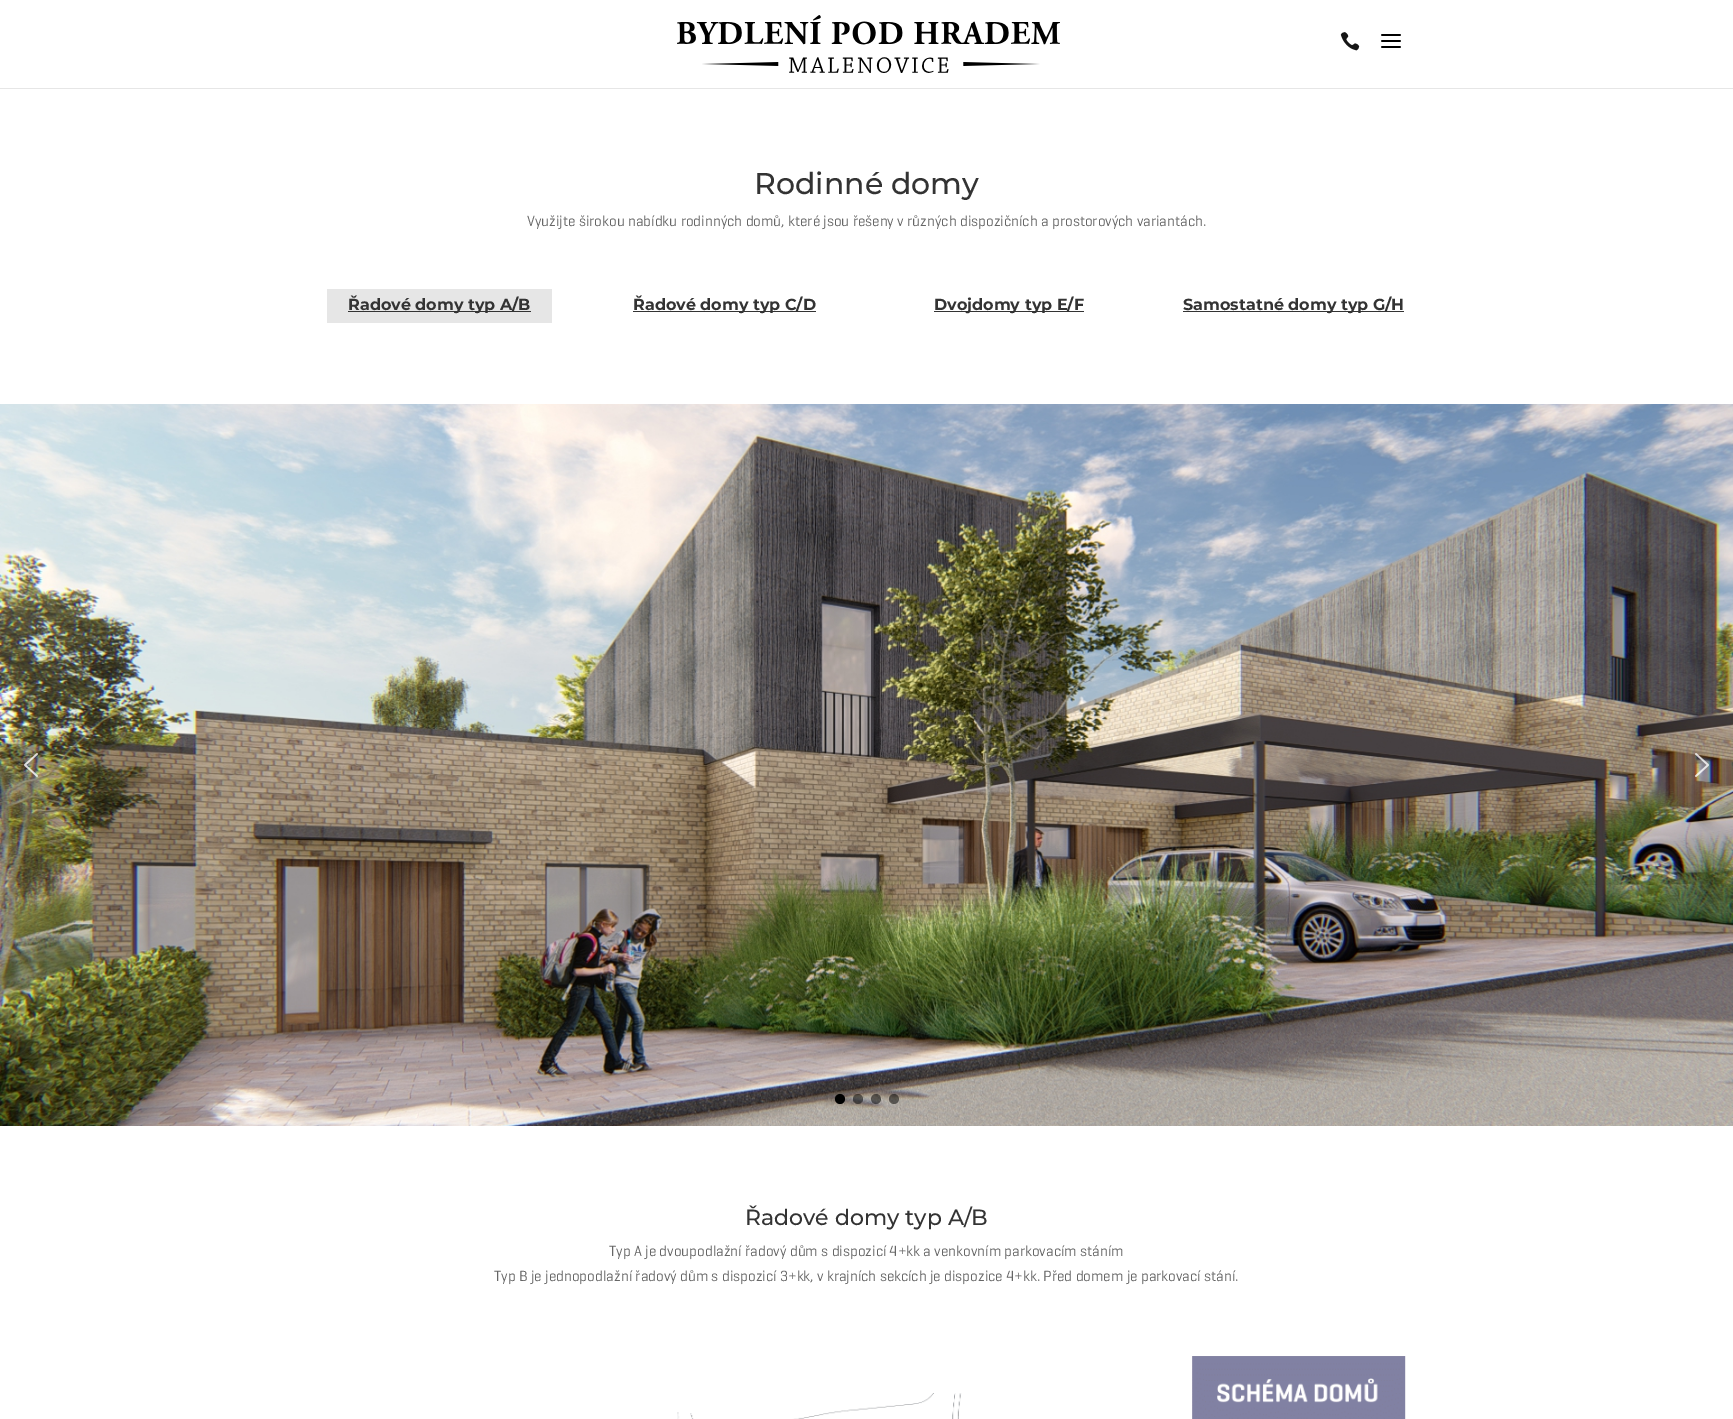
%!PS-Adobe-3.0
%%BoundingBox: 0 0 1733 1419
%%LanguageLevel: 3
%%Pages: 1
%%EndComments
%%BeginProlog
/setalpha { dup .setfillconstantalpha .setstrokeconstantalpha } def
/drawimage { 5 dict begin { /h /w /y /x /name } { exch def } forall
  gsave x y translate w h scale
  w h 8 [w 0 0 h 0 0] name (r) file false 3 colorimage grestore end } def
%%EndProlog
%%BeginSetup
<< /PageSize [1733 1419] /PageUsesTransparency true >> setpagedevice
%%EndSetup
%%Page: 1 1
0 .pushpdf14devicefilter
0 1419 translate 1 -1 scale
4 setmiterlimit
1 setgray
0 0 1733 1419 rectfill
0.902 setgray
0 88 1733 1 rectfill
(images/1.raw) 677 15 383 58 drawimage
(images/2.raw) 1340 32 20 19 drawimage
(images/3.raw) 1381 34 20 14 drawimage
327 289 225 34 rectfill
0.2 setgray
348 311 183 1 rectfill
633 311 183 1 rectfill
934 311 150 1 rectfill
1183 311 221 1 rectfill
(images/4.raw) 0 404 1733 722 drawimage
(images/5.raw) 24 753 14 24 drawimage
(images/6.raw) 1695 753 14 24 drawimage
0 setgray
newpath 840 1099 5 0 360 arc closepath fill
0.5 setalpha
newpath 858 1099 5 0 360 arc closepath fill
newpath 876 1099 5 0 360 arc closepath fill
newpath 894 1099 5 0 360 arc closepath fill
1 setalpha
(images/7.raw) 677 1356 729 63 drawimage
/Montserrat-Medium [30 0 0 -30 0 0] selectfont
0.2 setgray
754 194 moveto (Rodinné domy) show
/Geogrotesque-Regular [15 0 0 -15 0 0] selectfont
0.4 setgray
527 226 moveto (Využijte širokou nabídku rodinných domů, které jsou řešeny v různých dispozičních a prostorových variantách.) show
/Montserrat-Bold [16 0 0 -16 0 0] selectfont
0.2 setgray
348 310 moveto (Řadové domy typ A/B) show
633 310 moveto (Řadové domy typ C/D) show
934 310 moveto (Dvojdomy typ E/F) show
1183 310 moveto (Samostatné domy typ G/H) show
/Montserrat-Medium [22 0 0 -22 0 0] selectfont
745 1225 moveto (Řadové domy typ A/B) show
/Geogrotesque-Regular [15 0 0 -15 0 0] selectfont
0.4 setgray
609 1256 moveto (Typ A je dvoupodlažní řadový dům s dispozicí 4+kk a venkovním parkovacím stáním) show
494 1281 moveto (Typ B je jednopodlažní řadový dům s dispozicí 3+kk, v krajních sekcích je dispozice 4+kk. Před domem je parkovací stání.) show
.poppdf14devicefilter showpage
%%EOF
